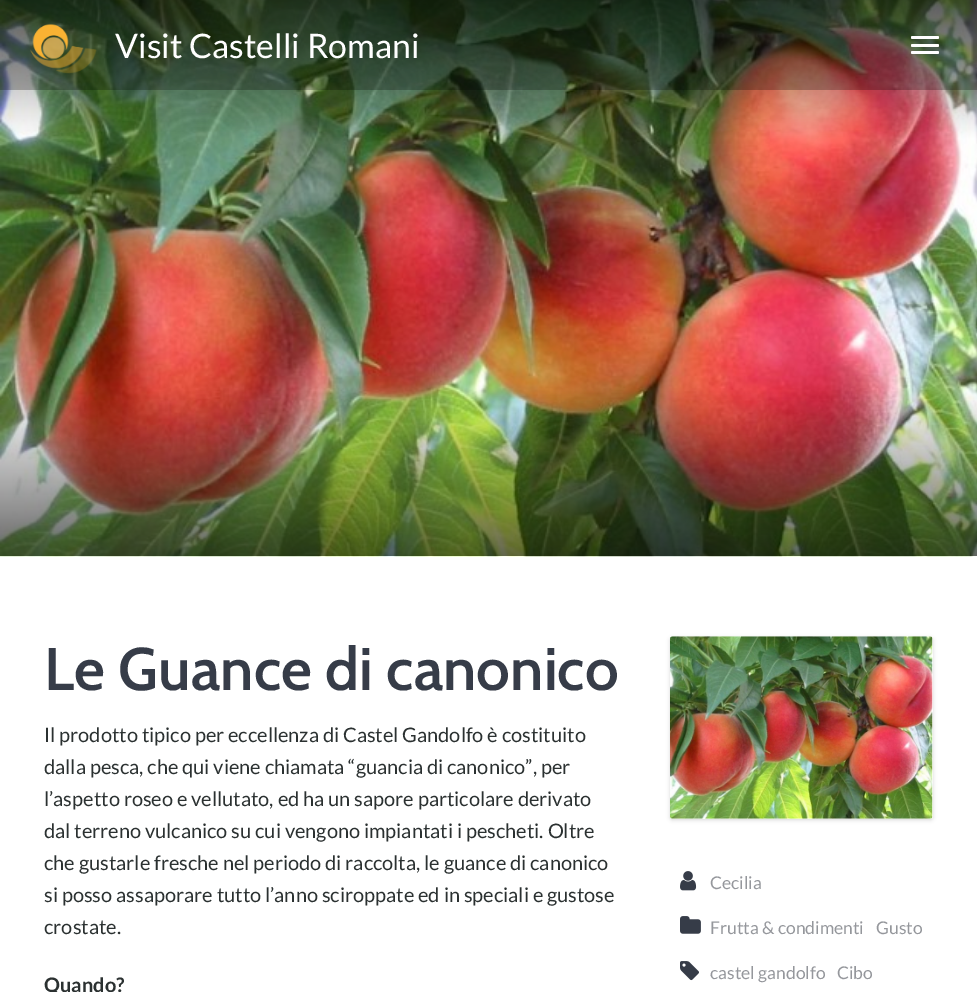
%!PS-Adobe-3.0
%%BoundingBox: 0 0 977 992
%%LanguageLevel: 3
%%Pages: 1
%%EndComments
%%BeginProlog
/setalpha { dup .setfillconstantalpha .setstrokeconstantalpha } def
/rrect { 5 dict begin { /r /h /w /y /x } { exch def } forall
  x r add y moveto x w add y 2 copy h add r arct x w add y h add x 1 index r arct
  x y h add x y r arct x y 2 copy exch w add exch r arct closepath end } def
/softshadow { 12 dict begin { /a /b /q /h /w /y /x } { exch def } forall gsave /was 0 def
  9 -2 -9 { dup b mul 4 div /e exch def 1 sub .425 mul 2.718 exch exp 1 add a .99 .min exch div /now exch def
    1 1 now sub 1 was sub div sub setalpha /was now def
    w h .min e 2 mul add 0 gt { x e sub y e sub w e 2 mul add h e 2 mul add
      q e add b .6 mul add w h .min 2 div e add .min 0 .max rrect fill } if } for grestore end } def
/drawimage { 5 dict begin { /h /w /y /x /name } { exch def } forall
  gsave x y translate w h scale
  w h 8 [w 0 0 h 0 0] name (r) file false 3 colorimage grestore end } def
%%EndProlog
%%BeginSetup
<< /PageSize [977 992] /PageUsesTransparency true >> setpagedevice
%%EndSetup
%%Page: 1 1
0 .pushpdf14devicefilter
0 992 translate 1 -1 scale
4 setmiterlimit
1 setgray
0 0 977 992 rectfill
(images/1.raw) 0 0 977 557 drawimage
0.26 setalpha
0 setgray
0 0 977 90 rectfill
1 setalpha
(images/2.raw) 30 23 67 51 drawimage
1 setgray
911 36 28 3 1.5 rrect fill
911 44 28 3 1.5 rrect fill
911 51 28 3 1.5 rrect fill
0 setgray
670 638 263 182 2.5 2 0.15 softshadow
1 setgray
670 636 263 183 2.5 rrect fill
(images/3.raw) 670 636 263 183 drawimage
(images/4.raw) 680 871 17 20 drawimage
(images/5.raw) 680 916 21 18 drawimage
(images/6.raw) 680 961 19 20 drawimage
/Lato-Regular [33.75 0 0 -33.75 0 0] selectfont
115 58 moveto (Visit Castelli Romani) show
/Cabin-SemiBold [60 0 0 -60 0 0] selectfont
0.212 0.235 0.282 setrgbcolor
44 690 moveto (Le Guance di canonico) show
/Lato-Regular [20 0 0 -20 0 0] selectfont
0.169 0.192 0.192 setrgbcolor
44 742 moveto (Il prodotto tipico per eccellenza di Castel Gandolfo è costituito) show
44 774 moveto (dalla pesca, che qui viene chiamata “guancia di canonico”, per) show
44 806 moveto (l’aspetto roseo e vellutato, ed ha un sapore particolare derivato) show
44 838 moveto (dal terreno vulcanico su cui vengono impiantati i pescheti. Oltre) show
44 870 moveto (che gustarle fresche nel periodo di raccolta, le guance di canonico) show
44 902 moveto (si posso assaporare tutto l’anno sciroppate ed in speciali e gustose) show
44 934 moveto (crostate.) show
/Lato-Bold [20 0 0 -20 0 0] selectfont
44 992 moveto (Quando?) show
/Lato-Regular [17.5 0 0 -17.5 0 0] selectfont
0.584 0.592 0.612 setrgbcolor
710 889 moveto (Cecilia) show
710 934 moveto (Frutta & condimenti) show
876 934 moveto (Gusto) show
710 979 moveto (castel gandolfo) show
837 979 moveto (Cibo) show
.poppdf14devicefilter showpage
%%EOF
